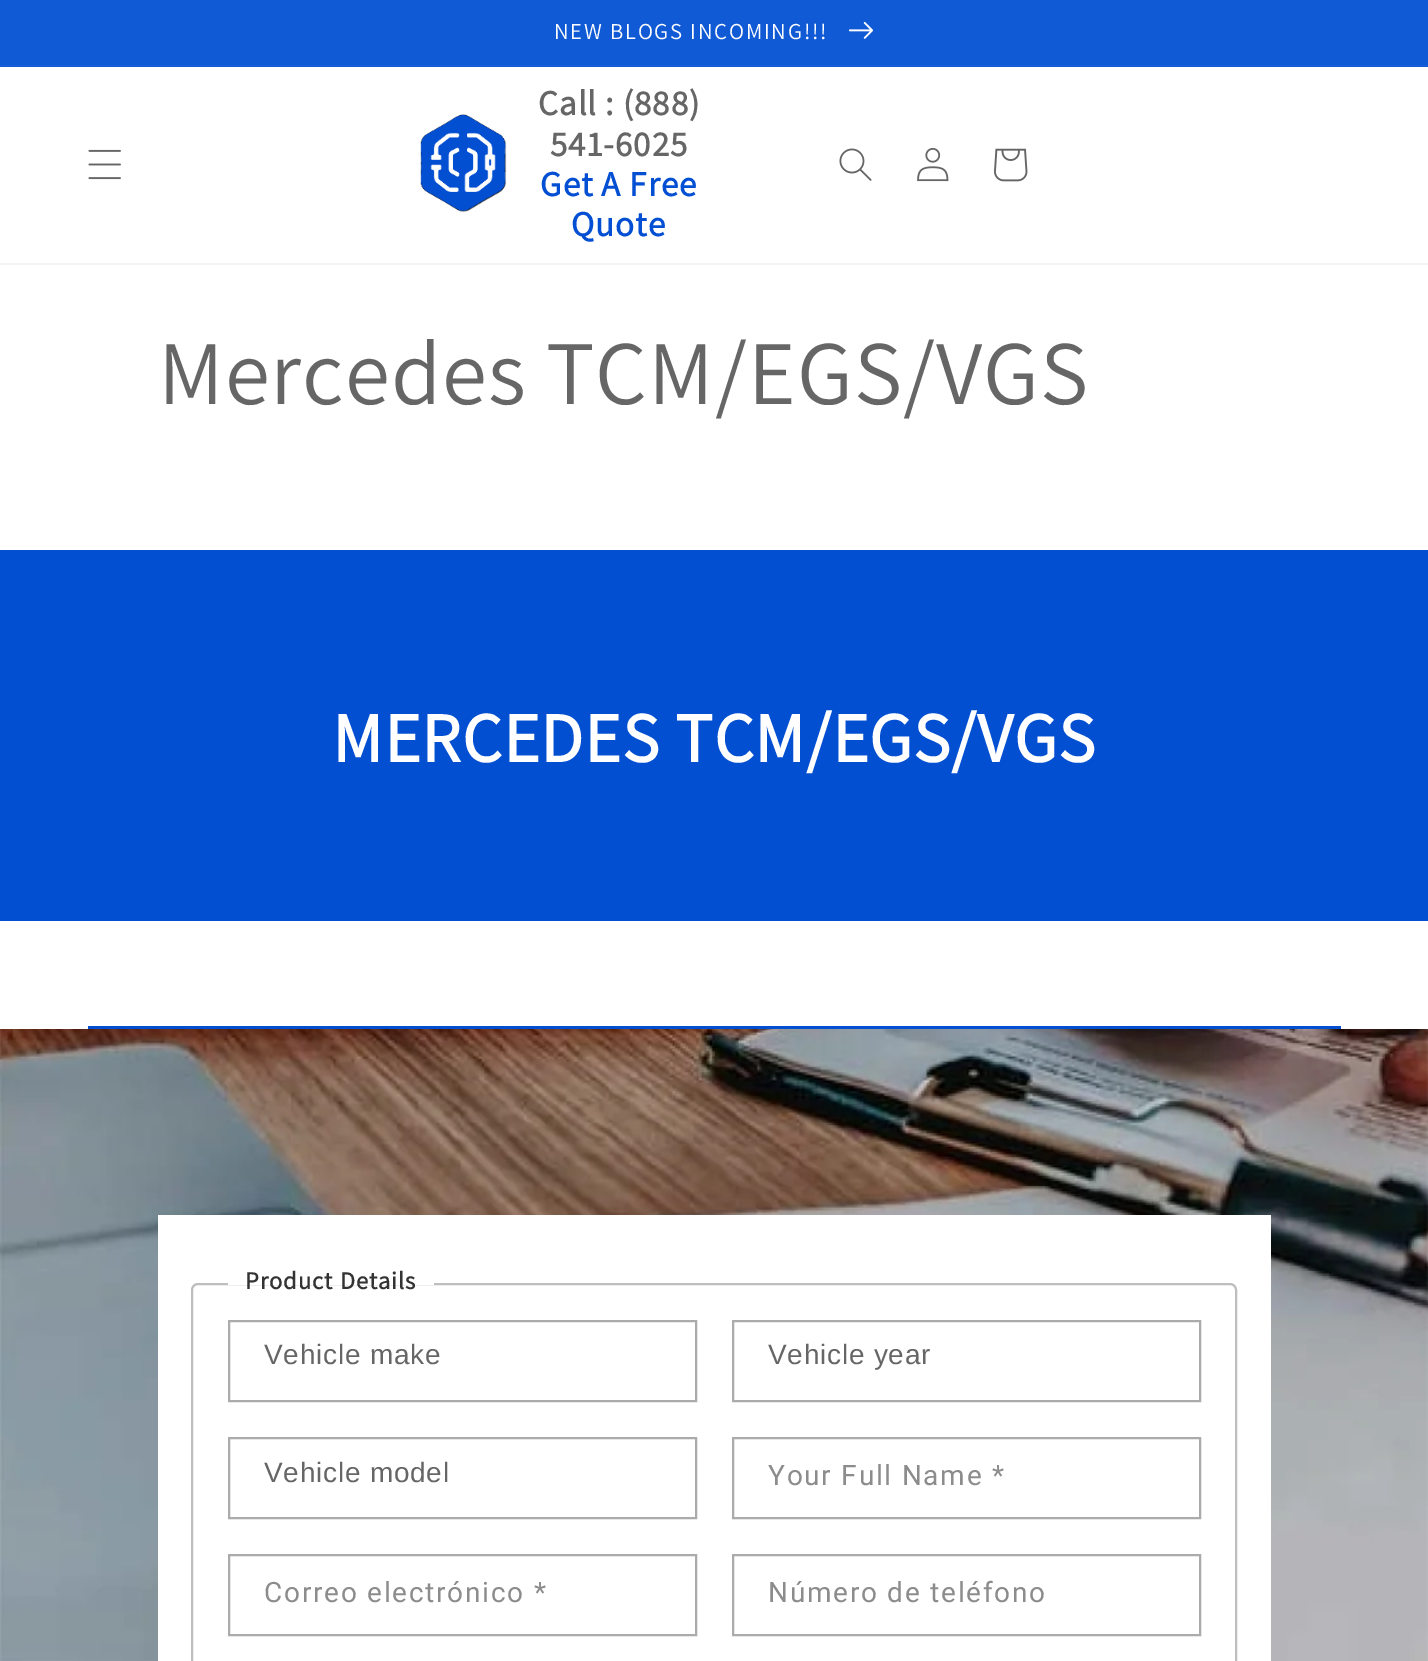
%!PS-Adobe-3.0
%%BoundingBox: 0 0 1428 1661
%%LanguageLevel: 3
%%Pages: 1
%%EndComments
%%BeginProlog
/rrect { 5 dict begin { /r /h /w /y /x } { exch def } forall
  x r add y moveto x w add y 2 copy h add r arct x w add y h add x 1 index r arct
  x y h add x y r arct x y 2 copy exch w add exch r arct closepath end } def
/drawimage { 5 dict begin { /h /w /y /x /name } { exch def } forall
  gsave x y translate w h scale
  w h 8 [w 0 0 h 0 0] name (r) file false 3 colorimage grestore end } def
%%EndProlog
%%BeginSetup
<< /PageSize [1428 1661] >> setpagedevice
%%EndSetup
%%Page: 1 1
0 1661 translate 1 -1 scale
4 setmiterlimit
1 setgray
0 0 1428 1661 rectfill
0.086 0.365 0.843 setrgbcolor
0 65 1428 2 rectfill
0.067 0.353 0.839 setrgbcolor
0 0 1428 65 rectfill
(images/1.raw) 849 21 25 18 drawimage
0.953 setgray
0 263 1428 2 rectfill
(images/2.raw) 88 149 33 31 drawimage
(images/3.raw) 420 114 87 98 drawimage
(images/4.raw) 839 148 33 33 drawimage
(images/5.raw) 917 147 32 35 drawimage
(images/6.raw) 994 148 34 34 drawimage
0.008 0.31 0.824 setrgbcolor
0 550 1428 371 rectfill
88 1026 1253 3 rectfill
(images/7.raw) 0 1029 1428 632 drawimage
1 setgray
158 1215 1113 446 rectfill
0.737 0.745 0.753 setrgbcolor
2 setlinewidth
192 1284 1044 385 6 rrect stroke
1 setgray
228 1283 206 2 rectfill
0.671 setgray
229 1321 467 80 rectstroke
733 1321 467 80 rectstroke
229 1438 467 80 rectstroke
733 1438 467 80 rectstroke
229 1555 467 80 rectstroke
733 1555 467 80 rectstroke
/Assistant-Regular [22.75 0 0 -22.75 0 0] selectfont
1 setgray
554 39 moveto 1.75 0 (NEW BLOGS INCOMING!!!) ashow
/Assistant-Bold [35 0 0 -35 0 0] selectfont
0.4 setgray
538 115 moveto 1.05 0 (Call : \(888\)) ashow
550 156 moveto 1.05 0 (541-6025) ashow
0.008 0.31 0.827 setrgbcolor
540 196 moveto 1.05 0 (Get A Free) ashow
571 236 moveto 1.05 0 (Quote) ashow
/Assistant-Regular [91 0 0 -91 0 0] selectfont
0.4 setgray
158 404 moveto 1.05 0 (Mercedes TCM/EGS/VGS) ashow
/Assistant-Bold [70 0 0 -70 0 0] selectfont
1 setgray
332 762 moveto 1.05 0 (MERCEDES TCM/EGS/VGS) ashow
/Assistant-Bold [24.5 0 0 -24.5 0 0] selectfont
0.2 setgray
245 1289 moveto 1.05 0 (Product Details) ashow
/LiberationSans-Regular [28 0 0 -28 0 0] selectfont
0.4 setgray
264 1364 moveto 0.75 0 (Vehicle make) ashow
768 1364 moveto 0.75 0 (Vehicle year) ashow
264 1482 moveto 0.75 0 (Vehicle model) ashow
/Roboto-Regular [28 0 0 -28 0 0] selectfont
0.549 setgray
768 1485 moveto 1.75 0 (Your Full Name *) ashow
264 1602 moveto 1.75 0 (Correo electrónico *) ashow
768 1602 moveto 1.75 0 (Número de teléfono) ashow
showpage
%%EOF
